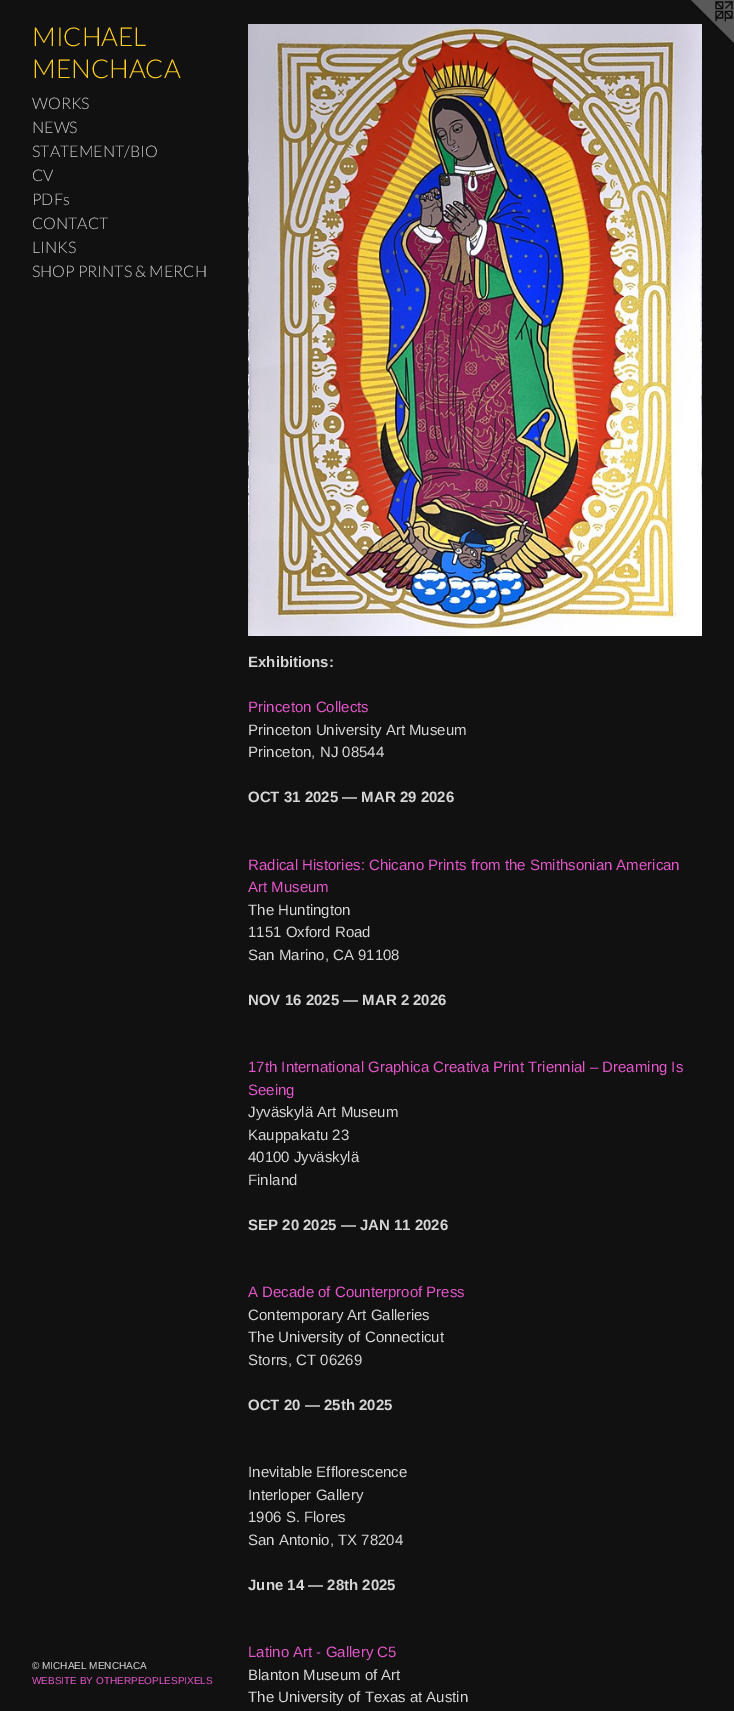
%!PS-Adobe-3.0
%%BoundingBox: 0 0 734 1711
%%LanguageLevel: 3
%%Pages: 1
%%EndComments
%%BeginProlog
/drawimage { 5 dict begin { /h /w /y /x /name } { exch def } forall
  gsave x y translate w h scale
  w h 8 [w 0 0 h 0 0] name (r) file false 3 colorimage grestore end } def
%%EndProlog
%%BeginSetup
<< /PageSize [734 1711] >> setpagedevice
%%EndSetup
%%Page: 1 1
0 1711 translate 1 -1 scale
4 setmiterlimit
0.067 setgray
0 0 734 1711 rectfill
(images/1.raw) 691 0 43 43 drawimage
(images/2.raw) 248 24 454 612 drawimage
/Lato-Light [26 0 0 -26 0 0] selectfont
1 0.808 0.122 setrgbcolor
32 46 moveto (MICHAEL) show
32 78 moveto (MENCHACA) show
/Lato-Light [16 0 0 -16 0 0] selectfont
0.839 setgray
32 109 moveto (WORKS) show
32 133 moveto (NEWS) show
32 157 moveto (STATEMENT/BIO) show
32 181 moveto (CV) show
32 205 moveto (PDFs) show
32 229 moveto (CONTACT) show
32 253 moveto (LINKS) show
32 277 moveto (SHOP PRINTS & MERCH) show
/LiberationSans-Regular [10 0 0 -10 0 0] selectfont
32 1669 moveto (© MICHAEL MENCHACA) show
0.882 0.337 0.784 setrgbcolor
32 1684 moveto (WEBSITE BY OTHERPEOPLESPIXELS) show
/LiberationSans-Bold [15 0 0 -15 0 0] selectfont
0.839 setgray
248 667 moveto (Exhibitions:) show
/LiberationSans-Regular [15 0 0 -15 0 0] selectfont
0.882 0.337 0.784 setrgbcolor
248 712 moveto (Princeton Collects) show
0.839 setgray
248 735 moveto (Princeton University Art Museum) show
248 757 moveto (Princeton, NJ 08544) show
/LiberationSans-Bold [15 0 0 -15 0 0] selectfont
248 802 moveto (OCT 31 2025 — MAR 29 2026) show
/LiberationSans-Regular [15 0 0 -15 0 0] selectfont
0.882 0.337 0.784 setrgbcolor
248 870 moveto (Radical Histories: Chicano Prints from the Smithsonian American) show
248 892 moveto (Art Museum) show
0.839 setgray
248 915 moveto (The Huntington) show
248 937 moveto (1151 Oxford Road) show
248 960 moveto (San Marino, CA 91108) show
/LiberationSans-Bold [15 0 0 -15 0 0] selectfont
248 1005 moveto (NOV 16 2025 — MAR 2 2026) show
/LiberationSans-Regular [15 0 0 -15 0 0] selectfont
0.882 0.337 0.784 setrgbcolor
248 1072 moveto (17th International Graphica Creativa Print Triennial – Dreaming Is) show
248 1095 moveto (Seeing) show
0.839 setgray
248 1117 moveto (Jyväskylä Art Museum) show
248 1140 moveto (Kauppakatu 23) show
248 1162 moveto (40100 Jyväskylä) show
248 1185 moveto (Finland) show
/LiberationSans-Bold [15 0 0 -15 0 0] selectfont
248 1230 moveto (SEP 20 2025 — JAN 11 2026) show
/LiberationSans-Regular [15 0 0 -15 0 0] selectfont
0.882 0.337 0.784 setrgbcolor
248 1297 moveto (A Decade of Counterproof Press) show
0.839 setgray
248 1320 moveto (Contemporary Art Galleries) show
248 1342 moveto (The University of Connecticut) show
248 1365 moveto (Storrs, CT 06269) show
/LiberationSans-Bold [15 0 0 -15 0 0] selectfont
248 1410 moveto (OCT 20 — 25th 2025) show
/LiberationSans-Regular [15 0 0 -15 0 0] selectfont
248 1477 moveto (Inevitable Efflorescence) show
248 1500 moveto (Interloper Gallery) show
248 1522 moveto (1906 S. Flores) show
248 1545 moveto (San Antonio, TX 78204) show
/LiberationSans-Bold [15 0 0 -15 0 0] selectfont
248 1590 moveto (June 14 — 28th 2025) show
/LiberationSans-Regular [15 0 0 -15 0 0] selectfont
0.882 0.337 0.784 setrgbcolor
248 1657 moveto (Latino Art - Gallery C5) show
0.839 setgray
248 1680 moveto (Blanton Museum of Art) show
248 1702 moveto (The University of Texas at Austin) show
showpage
%%EOF
